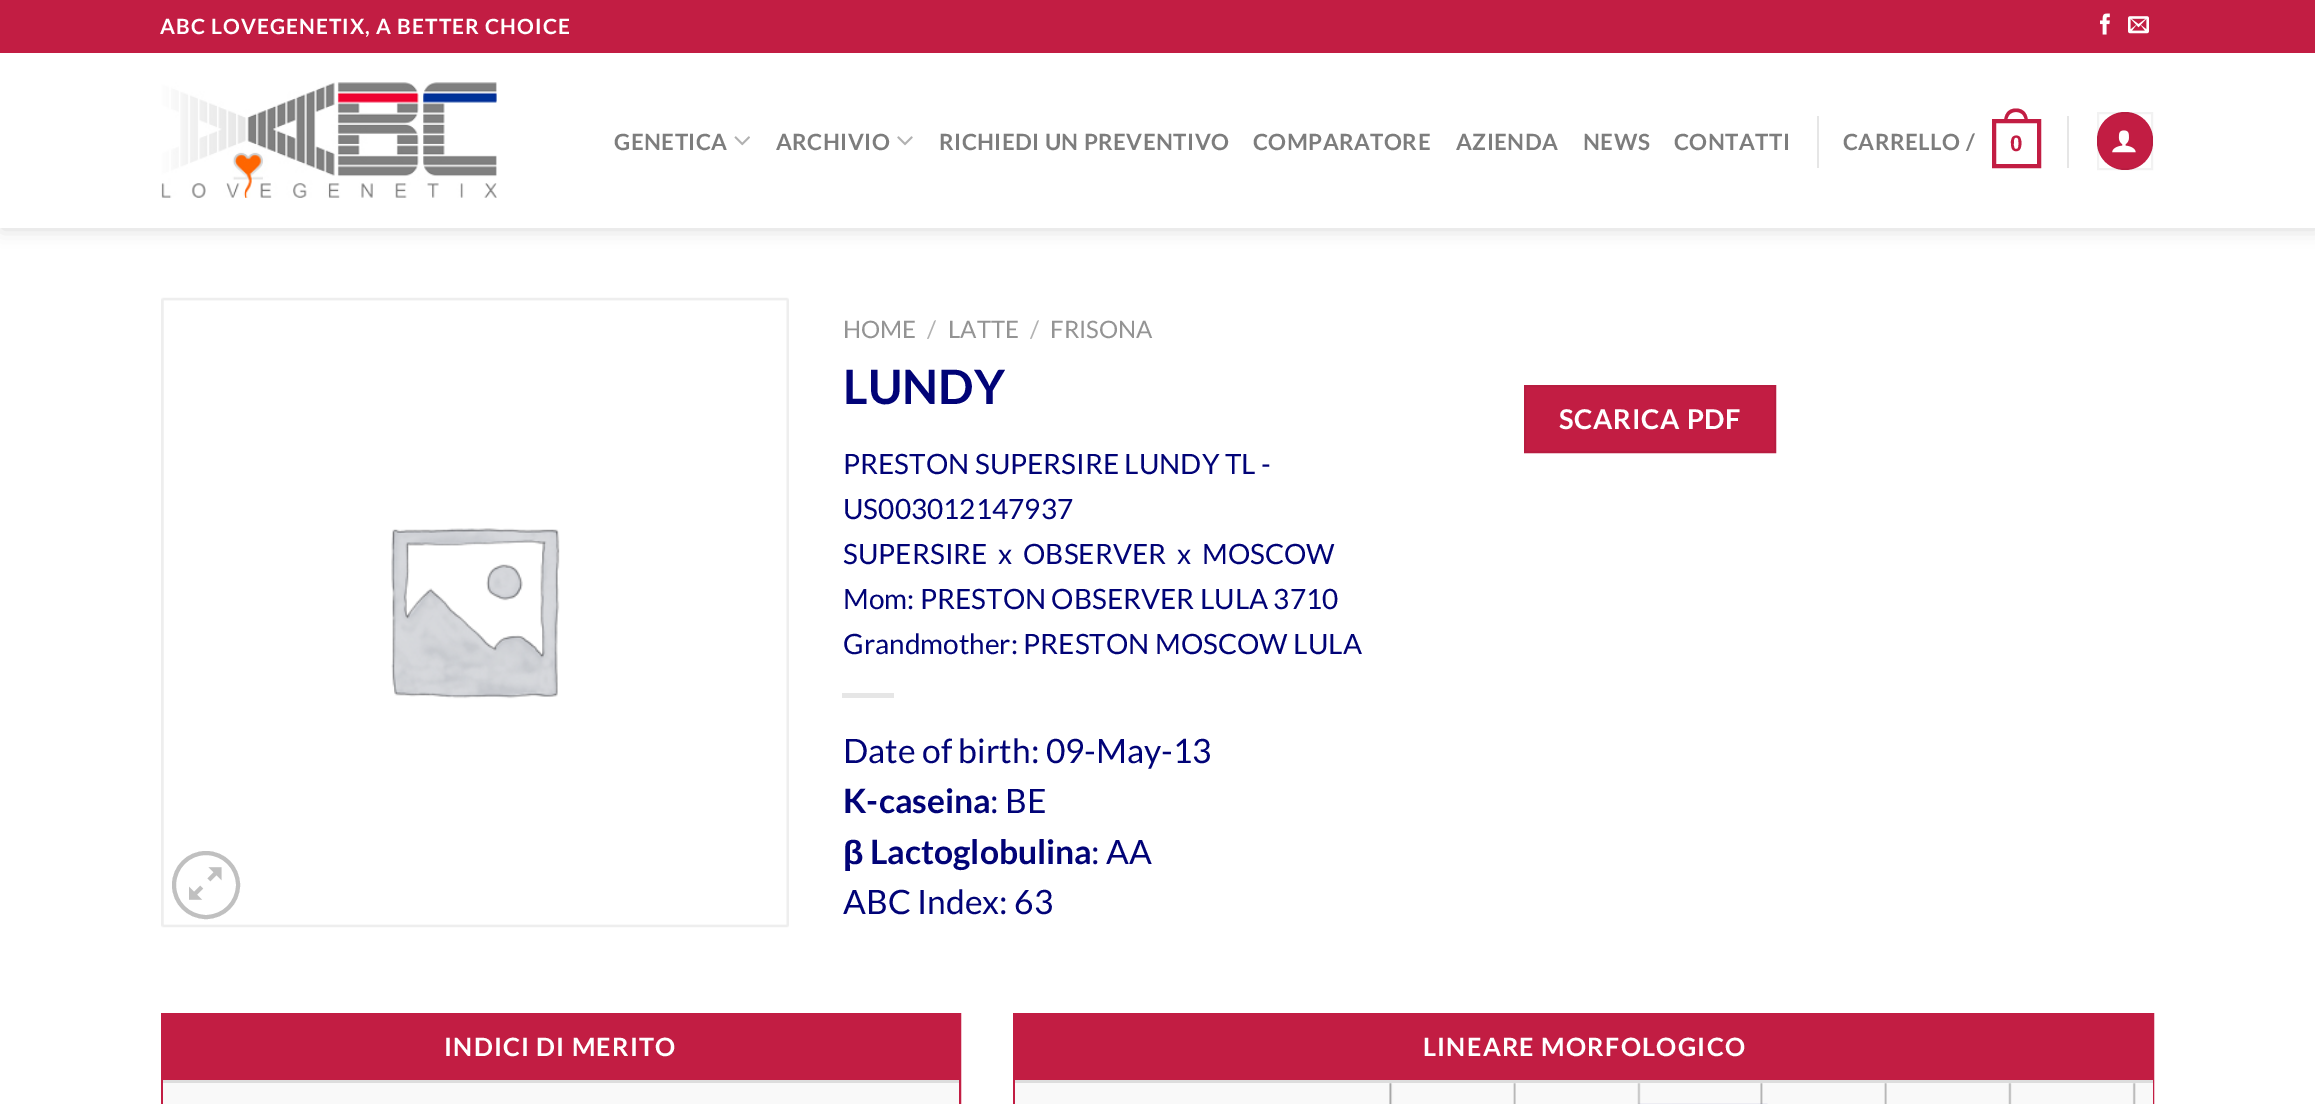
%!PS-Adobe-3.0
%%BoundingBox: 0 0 2315 1104
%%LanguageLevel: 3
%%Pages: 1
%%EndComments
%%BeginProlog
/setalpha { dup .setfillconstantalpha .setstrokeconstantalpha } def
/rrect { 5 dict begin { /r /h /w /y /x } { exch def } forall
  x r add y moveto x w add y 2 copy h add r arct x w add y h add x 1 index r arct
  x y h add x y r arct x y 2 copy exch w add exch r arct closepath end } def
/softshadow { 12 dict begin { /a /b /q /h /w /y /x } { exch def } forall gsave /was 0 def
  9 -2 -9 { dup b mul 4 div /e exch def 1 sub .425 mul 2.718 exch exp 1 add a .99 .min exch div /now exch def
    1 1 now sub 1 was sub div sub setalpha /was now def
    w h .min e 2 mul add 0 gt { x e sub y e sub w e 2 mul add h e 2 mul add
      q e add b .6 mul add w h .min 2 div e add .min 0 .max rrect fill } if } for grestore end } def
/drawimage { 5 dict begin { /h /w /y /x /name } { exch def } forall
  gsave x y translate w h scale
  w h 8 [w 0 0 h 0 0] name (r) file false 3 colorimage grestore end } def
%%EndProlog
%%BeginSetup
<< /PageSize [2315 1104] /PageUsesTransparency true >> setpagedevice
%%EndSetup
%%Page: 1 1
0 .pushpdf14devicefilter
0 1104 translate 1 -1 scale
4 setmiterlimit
1 setgray
0 0 2315 1104 rectfill
gsave
newpath 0 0 moveto 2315 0 lineto 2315 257 lineto 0 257 lineto closepath 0 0 moveto 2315 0 lineto 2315 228 lineto 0 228 lineto closepath eoclip newpath
0 setgray
2 2 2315 227 0 9 0.15 softshadow
grestore
0.9 setalpha
0 227 2315 1 rectfill
1 setalpha
0.761 0.114 0.263 setrgbcolor
0 0 2315 53 rectfill
(images/1.raw) 2100 13 10 22 drawimage
(images/2.raw) 2128 16 21 18 drawimage
(images/3.raw) 161 82 336 116 drawimage
(images/4.raw) 734 136 16 10 drawimage
(images/5.raw) 897 136 16 10 drawimage
0.902 setgray
1817 116 2 52 rectfill
0.761 0.114 0.263 setrgbcolor
4 setlinewidth
1994 121 45 45 rectstroke
newpath 2016 108.5 moveto 2024.5 108.5 2028 115 2028 122.5 curveto 2004 122.5 lineto 2004 115 2007.5 108.5 2016 108.5 curveto closepath 2016 112 moveto 2022.5 112 2025 117 2025 122.5 curveto 2007 122.5 lineto 2007 117 2009.5 112 2016 112 curveto closepath eofill
0.902 setgray
2067 116 2 52 rectfill
0.761 0.114 0.263 setrgbcolor
2097 112 56 58 28 rrect fill
0.05 setalpha
0 setgray
2 setlinewidth
2098 113 54 56 rectstroke
1 setalpha
(images/6.raw) 2112 130 24 23 drawimage
(images/7.raw) 161 297 628 631 drawimage
0.753 setgray
4 setlinewidth
newpath 206 885 32 0 360 arc closepath stroke
(images/8.raw) 189 867 33 33 drawimage
0.902 setgray
842 693 52 5 rectfill
0.761 0.114 0.263 setrgbcolor
newpath 1525 386 moveto 1775 386 lineto 1775 452 lineto 1525 452 lineto closepath gsave fill grestore
0.722 0.11 0.251 setrgbcolor
2 setlinewidth
stroke
0.761 0.114 0.263 setrgbcolor
162 1014 798 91 rectstroke
163 1015 796 65 rectfill
0.867 setgray
163 1080 796 3 rectfill
0.976 setgray
163 1083 796 21 rectfill
0.761 0.114 0.263 setrgbcolor
1014 1014 1139 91 rectstroke
1015 1015 1137 65 rectfill
0.867 setgray
1015 1080 1138 3 rectfill
0.976 setgray
1015 1083 1138 21 rectfill
(images/9.raw) 1389 1083 747 21 drawimage
/Lato-Bold [21 0 0 -21 0 0] selectfont
1 setgray
160 34 moveto 1.05 0 (ABC LOVEGENETIX, A BETTER CHOICE) ashow
/Lato-Bold [22.4 0 0 -22.4 0 0] selectfont
0.49 setgray
614 150 moveto 0.45 0 (GENETICA) ashow
776 150 moveto 0.45 0 (ARCHIVIO) ashow
939 150 moveto 0.45 0 (RICHIEDI UN PREVENTIVO) ashow
1253 150 moveto 0.45 0 (COMPARATORE) ashow
1456 150 moveto 0.45 0 (AZIENDA) ashow
1583 150 moveto 0.45 0 (NEWS) ashow
1674 150 moveto 0.45 0 (CONTATTI) ashow
1843 150 moveto 0.45 0 (CARRELLO /) ashow
/LiberationSans-Bold [22.4 0 0 -22.4 0 0] selectfont
0.761 0.114 0.263 setrgbcolor
2010 151 moveto 0.45 0 (0) ashow
/Lato-Regular [24 0 0 -24 0 0] selectfont
0.58 setgray
843 338 moveto (HOME) show
0.698 setgray
927 338 moveto (/) show
0.58 setgray
948 338 moveto (LATTE) show
0.698 setgray
1030 338 moveto (/) show
0.58 setgray
1050 338 moveto (FRISONA) show
/Lato-Bold [47.5 0 0 -47.5 0 0] selectfont
0.004 0.012 0.467 setrgbcolor
843 404 moveto (LUNDY) show
/Lato-Regular [28 0 0 -28 0 0] selectfont
843 474 moveto (PRESTON SUPERSIRE LUNDY TL -) show
843 519 moveto (US003012147937) show
843 564 moveto (SUPERSIRE  x  OBSERVER  x  MOSCOW) show
843 609 moveto (Mom: PRESTON OBSERVER LULA 3710) show
843 654 moveto (Grandmother: PRESTON MOSCOW LULA) show
/Lato-Regular [33.6 0 0 -33.6 0 0] selectfont
843 763 moveto (Date of birth: 09-May-13) show
/Lato-Bold [33.6 0 0 -33.6 0 0] selectfont
843 813 moveto (K-caseina) show
/Lato-Regular [33.6 0 0 -33.6 0 0] selectfont
990 813 moveto (: BE) show
/LiberationSans-Bold [33.6 0 0 -33.6 0 0] selectfont
843 864 moveto (β) show
/Lato-Bold [33.6 0 0 -33.6 0 0] selectfont
870 864 moveto (Lactoglobulina) show
/Lato-Regular [33.6 0 0 -33.6 0 0] selectfont
1091 864 moveto (: AA) show
843 914 moveto (ABC Index: 63) show
/Lato-Bold [27.25 0 0 -27.25 0 0] selectfont
1 setgray
1559 429 moveto 0.75 0 (SCARICA PDF) ashow
/Lato-Bold [25.25 0 0 -25.25 0 0] selectfont
444 1056 moveto 1.25 0 (INDICI DI MERITO) ashow
1423 1056 moveto 1.25 0 (LINEARE MORFOLOGICO) ashow
.poppdf14devicefilter showpage
%%EOF
